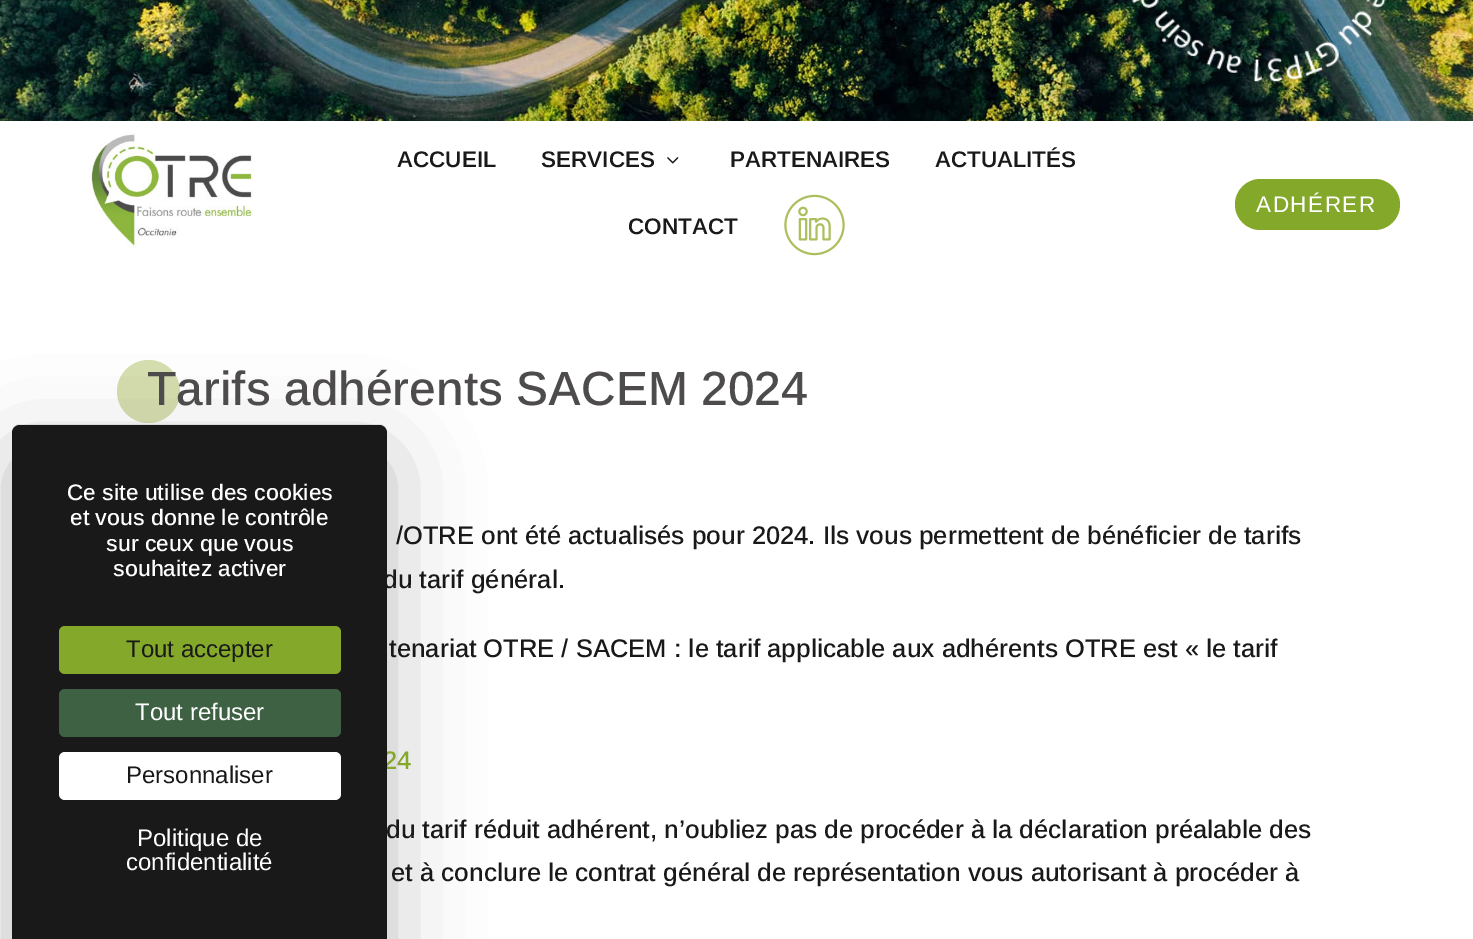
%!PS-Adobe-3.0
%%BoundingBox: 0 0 1473 939
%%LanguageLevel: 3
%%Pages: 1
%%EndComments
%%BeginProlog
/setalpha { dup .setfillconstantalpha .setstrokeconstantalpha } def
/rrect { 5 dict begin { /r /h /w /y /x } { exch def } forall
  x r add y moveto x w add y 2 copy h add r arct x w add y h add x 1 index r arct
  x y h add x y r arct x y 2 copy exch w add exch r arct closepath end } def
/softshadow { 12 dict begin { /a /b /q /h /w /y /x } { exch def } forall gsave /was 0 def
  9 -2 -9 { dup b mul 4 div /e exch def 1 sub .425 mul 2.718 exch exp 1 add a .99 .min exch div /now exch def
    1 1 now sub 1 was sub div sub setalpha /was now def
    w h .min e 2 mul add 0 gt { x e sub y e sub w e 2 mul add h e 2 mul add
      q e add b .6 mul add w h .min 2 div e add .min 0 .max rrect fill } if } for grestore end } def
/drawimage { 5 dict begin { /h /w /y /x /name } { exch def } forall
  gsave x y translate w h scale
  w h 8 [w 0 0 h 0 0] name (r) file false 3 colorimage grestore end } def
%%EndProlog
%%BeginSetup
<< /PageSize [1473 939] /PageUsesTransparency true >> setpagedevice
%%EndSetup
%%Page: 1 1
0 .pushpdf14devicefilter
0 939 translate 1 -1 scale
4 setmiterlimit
1 setgray
0 0 1473 939 rectfill
(images/1.raw) 0 0 1473 121 drawimage
(images/2.raw) 1132 0 254 82 drawimage
(images/3.raw) 89 132 164 116 drawimage
(images/4.raw) 667 157 12 7 drawimage
(images/5.raw) 784 194 61 62 drawimage
0.518 0.659 0.161 setrgbcolor
1235 179 165 51 25.5 rrect fill
0.839 0.875 0.686 setrgbcolor
newpath 148.5 391.5 31.5 0 360 arc closepath fill
0 setgray
12 455 375 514 8 45 0.25 softshadow
/Arimo-SemiBold [22.5 0 0 -22.5 0 0] selectfont
0.098 setgray
397 167 moveto (ACCUEIL) show
541 167 moveto (SERVICES) show
730 167 moveto (PARTENAIRES) show
935 167 moveto (ACTUALITÉS) show
628 234 moveto (CONTACT) show
/Arimo-Regular [22.5 0 0 -22.5 0 0] selectfont
1 setgray
1256 212 moveto 1.5 0 (ADHÉRER) ashow
/Arimo-Medium [48 0 0 -48 0 0] selectfont
0.302 0.294 0.294 setrgbcolor
147 405 moveto (Tarifs adhérents SACEM 2024) show
/Arimo-Medium [25.5 0 0 -25.5 0 0] selectfont
0.098 setgray
396 544 moveto (/OTRE ont été actualisés pour 2024. Ils vous permettent de bénéficier de tarifs) show
383 588 moveto (du tarif général.) show
389 657 moveto (tenariat OTRE / SACEM : le tarif applicable aux adhérents OTRE est « le tarif) show
0.518 0.659 0.161 setrgbcolor
383 769 moveto (24) show
0.098 setgray
386 838 moveto (du tarif réduit adhérent, n’oubliez pas de procéder à la déclaration préalable des) show
391 881 moveto (et à conclure le contrat général de représentation vous autorisant à procéder à) show
newpath 20 425 moveto 379 425 lineto 383.5 425 387 428.5 387 433 curveto 387 939 lineto 12 939 lineto 12 433 lineto 12 428.5 15.5 425 20 425 curveto closepath fill
0.08 setalpha
0 setgray
newpath 20 424 moveto 380 424 lineto 384 424 387 428 387 432 curveto 387 939 lineto 12 939 lineto 12 432 lineto 12 428 15 424 20 424 curveto closepath 20 426 moveto 380 426 lineto 383 426 386 429 386 432 curveto 386 939 lineto 14 939 lineto 14 432 lineto 14 429 16 426 20 426 curveto closepath eofill
/Arimo-Medium [22.5 0 0 -22.5 0 0] selectfont
1 setalpha
1 setgray
67 500 moveto (Ce site utilise des cookies) show
70 525 moveto (et vous donne le contrôle) show
106 551 moveto (sur ceux que vous) show
113 576 moveto (souhaitez activer) show
0.518 0.659 0.161 setrgbcolor
59 626 282 48 6 rrect fill
/Arimo-Regular [24 0 0 -24 0 0] selectfont
0.098 setgray
126 657 moveto (Tout accepter) show
0.243 0.38 0.267 setrgbcolor
59 689 282 48 6 rrect fill
1 setgray
135 720 moveto (Tout refuser) show
59 752 282 48 6 rrect fill
0.098 setgray
126 783 moveto (Personnaliser) show
1 setgray
137 846 moveto (Politique de) show
126 870 moveto (confidentialité) show
.poppdf14devicefilter showpage
%%EOF
